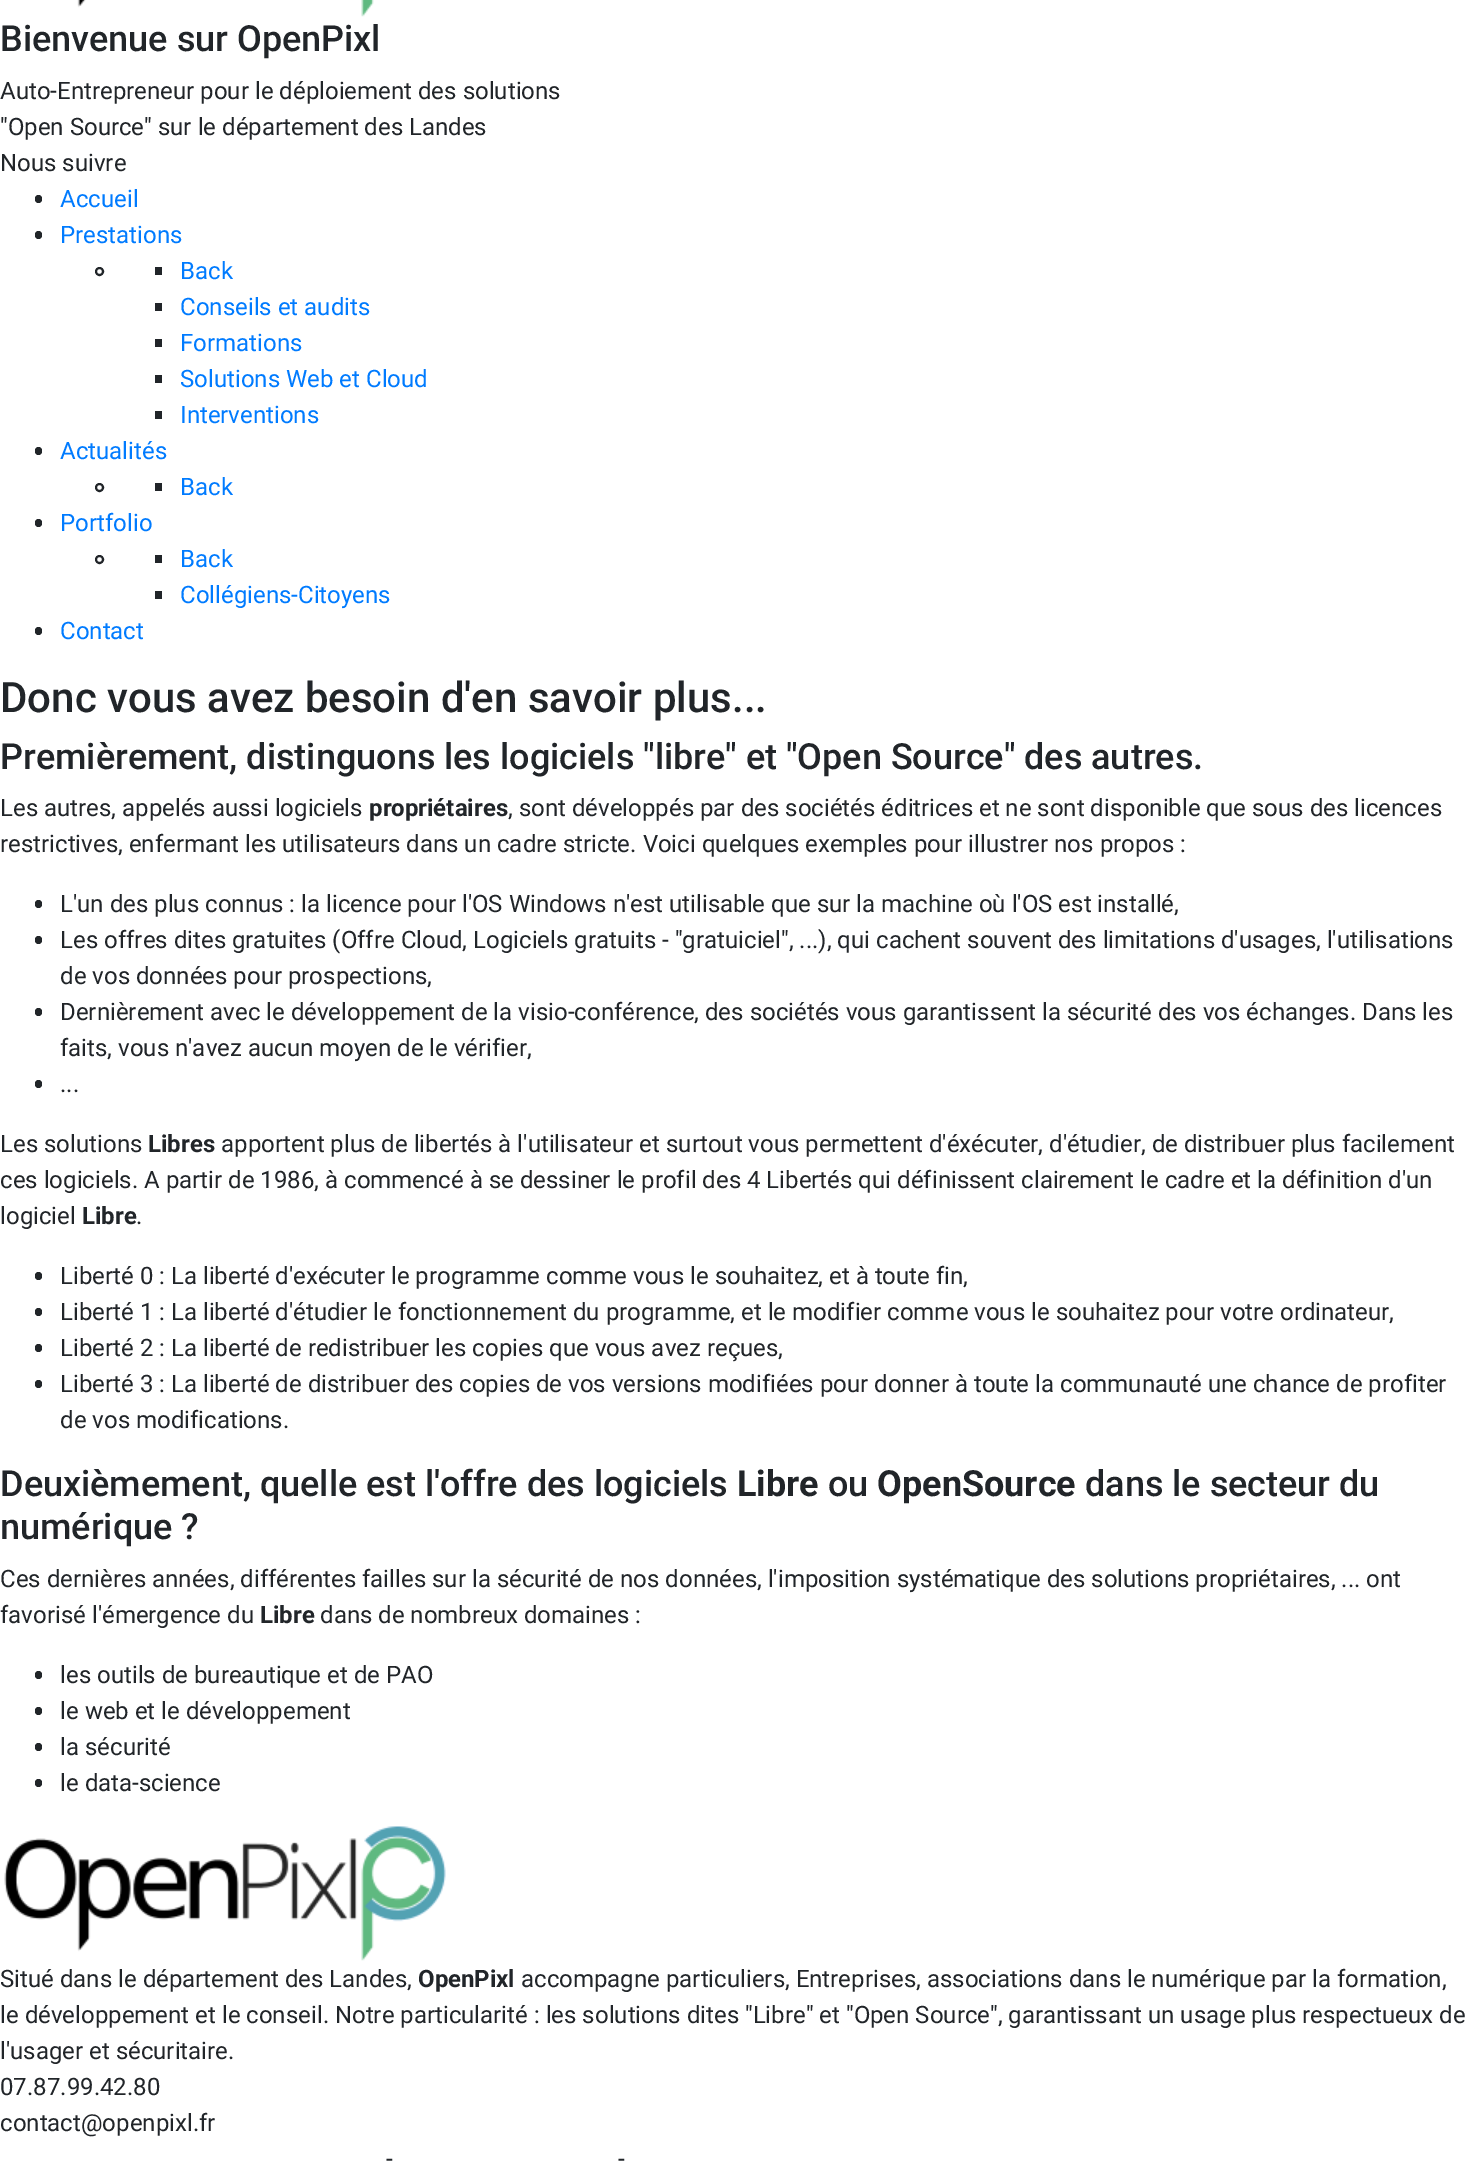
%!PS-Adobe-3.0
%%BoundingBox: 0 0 1467 2161
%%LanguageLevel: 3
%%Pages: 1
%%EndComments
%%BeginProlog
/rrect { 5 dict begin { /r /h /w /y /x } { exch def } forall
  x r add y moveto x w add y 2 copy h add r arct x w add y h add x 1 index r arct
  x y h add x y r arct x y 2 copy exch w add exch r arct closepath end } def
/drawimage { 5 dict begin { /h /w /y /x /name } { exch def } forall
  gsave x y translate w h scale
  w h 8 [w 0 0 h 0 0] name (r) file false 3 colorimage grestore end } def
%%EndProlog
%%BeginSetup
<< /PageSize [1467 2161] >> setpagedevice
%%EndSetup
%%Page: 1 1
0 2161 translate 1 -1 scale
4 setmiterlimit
1 setgray
0 0 1467 2161 rectfill
(images/1.raw) 77 0 297 17 drawimage
0.129 0.145 0.161 setrgbcolor
35 195 7 8 3.5 rrect fill
35 231 7 8 3.5 rrect fill
2 setlinewidth
newpath 99.5 271.5 3.5 0 360 arc closepath stroke
155 267 7 8 rectfill
155 303 7 8 rectfill
155 339 7 8 rectfill
155 375 7 8 rectfill
155 411 7 8 rectfill
35 447 7 8 3.5 rrect fill
newpath 99.5 487.5 3.5 0 360 arc closepath stroke
155 483 7 8 rectfill
35 519 7 8 3.5 rrect fill
newpath 99.5 559.5 3.5 0 360 arc closepath stroke
155 555 7 8 rectfill
155 591 7 8 rectfill
35 627 7 8 3.5 rrect fill
35 900 7 8 3.5 rrect fill
35 936 7 8 3.5 rrect fill
35 1008 7 8 3.5 rrect fill
35 1080 7 8 3.5 rrect fill
35 1272 7 8 3.5 rrect fill
35 1308 7 8 3.5 rrect fill
35 1344 7 8 3.5 rrect fill
35 1380 7 8 3.5 rrect fill
35 1671 7 8 3.5 rrect fill
35 1707 7 8 3.5 rrect fill
35 1743 7 8 3.5 rrect fill
35 1779 7 8 3.5 rrect fill
(images/2.raw) 4 1826 442 135 drawimage
/Roboto-Medium [36 0 0 -36 0 0] selectfont
0 51 moveto (Bienvenue sur OpenPixl) show
/Roboto-Regular [24 0 0 -24 0 0] selectfont
0 99 moveto (Auto-Entrepreneur pour le déploiement des solutions) show
0 135 moveto ("Open Source" sur le département des Landes) show
0 171 moveto (Nous suivre) show
0 0.482 1 setrgbcolor
60 207 moveto (Accueil) show
60 243 moveto (Prestations) show
180 279 moveto (Back) show
180 315 moveto (Conseils et audits) show
180 351 moveto (Formations) show
180 387 moveto (Solutions Web et Cloud) show
180 423 moveto (Interventions) show
60 459 moveto (Actualités) show
180 495 moveto (Back) show
60 531 moveto (Portfolio) show
180 567 moveto (Back) show
180 603 moveto (Collégiens-Citoyens) show
60 639 moveto (Contact) show
/Roboto-Medium [42 0 0 -42 0 0] selectfont
0.129 0.145 0.161 setrgbcolor
0 712 moveto (Donc vous avez besoin d'en savoir plus...) show
/Roboto-Medium [36 0 0 -36 0 0] selectfont
0 769 moveto (Premièrement, distinguons les logiciels "libre" et "Open Source" des autres.) show
/Roboto-Regular [24 0 0 -24 0 0] selectfont
0 816 moveto (Les autres, appelés aussi logiciels) show
/Roboto-Bold [24 0 0 -24 0 0] selectfont
369 816 moveto (propriétaires) show
/Roboto-Regular [24 0 0 -24 0 0] selectfont
508 816 moveto (, sont développés par des sociétés éditrices et ne sont disponible que sous des licences) show
0 852 moveto (restrictives, enfermant les utilisateurs dans un cadre stricte. Voici quelques exemples pour illustrer nos propos :) show
60 912 moveto (L'un des plus connus : la licence pour l'OS Windows n'est utilisable que sur la machine où l'OS est installé,) show
60 948 moveto (Les offres dites gratuites \(Offre Cloud, Logiciels gratuits - "gratuiciel", ...\), qui cachent souvent des limitations d'usages, l'utilisations) show
60 984 moveto (de vos données pour prospections,) show
60 1020 moveto (Dernièrement avec le développement de la visio-conférence, des sociétés vous garantissent la sécurité des vos échanges. Dans les) show
60 1056 moveto (faits, vous n'avez aucun moyen de le vérifier,) show
60 1092 moveto (...) show
0 1152 moveto (Les solutions) show
/Roboto-Bold [24 0 0 -24 0 0] selectfont
148 1152 moveto (Libres) show
/Roboto-Regular [24 0 0 -24 0 0] selectfont
221 1152 moveto (apportent plus de libertés à l'utilisateur et surtout vous permettent d'éxécuter, d'étudier, de distribuer plus facilement) show
0 1188 moveto (ces logiciels. A partir de 1986, à commencé à se dessiner le profil des 4 Libertés qui définissent clairement le cadre et la définition d'un) show
0 1224 moveto (logiciel) show
/Roboto-Bold [24 0 0 -24 0 0] selectfont
82 1224 moveto (Libre) show
/Roboto-Regular [24 0 0 -24 0 0] selectfont
136 1224 moveto (.) show
60 1284 moveto (Liberté 0 : La liberté d'exécuter le programme comme vous le souhaitez, et à toute fin,) show
60 1320 moveto (Liberté 1 : La liberté d'étudier le fonctionnement du programme, et le modifier comme vous le souhaitez pour votre ordinateur,) show
60 1356 moveto (Liberté 2 : La liberté de redistribuer les copies que vous avez reçues,) show
60 1392 moveto (Liberté 3 : La liberté de distribuer des copies de vos versions modifiées pour donner à toute la communauté une chance de profiter) show
60 1428 moveto (de vos modifications.) show
/Roboto-Medium [36 0 0 -36 0 0] selectfont
0 1496 moveto (Deuxièmement, quelle est l'offre des logiciels) show
/Roboto-Bold [36 0 0 -36 0 0] selectfont
737 1496 moveto (Libre) show
/Roboto-Medium [36 0 0 -36 0 0] selectfont
828 1496 moveto (ou) show
/Roboto-Bold [36 0 0 -36 0 0] selectfont
877 1496 moveto (OpenSource) show
/Roboto-Medium [36 0 0 -36 0 0] selectfont
1085 1496 moveto (dans le secteur du) show
0 1539 moveto (numérique ?) show
/Roboto-Regular [24 0 0 -24 0 0] selectfont
0 1587 moveto (Ces dernières années, différentes failles sur la sécurité de nos données, l'imposition systématique des solutions propriétaires, ... ont) show
0 1623 moveto (favorisé l'émergence du) show
/Roboto-Bold [24 0 0 -24 0 0] selectfont
260 1623 moveto (Libre) show
/Roboto-Regular [24 0 0 -24 0 0] selectfont
320 1623 moveto (dans de nombreux domaines :) show
60 1683 moveto (les outils de bureautique et de PAO) show
60 1719 moveto (le web et le développement) show
60 1755 moveto (la sécurité) show
60 1791 moveto (le data-science) show
0 1987 moveto (Situé dans le département des Landes,) show
/Roboto-Bold [24 0 0 -24 0 0] selectfont
418 1987 moveto (OpenPixl) show
/Roboto-Regular [24 0 0 -24 0 0] selectfont
521 1987 moveto (accompagne particuliers, Entreprises, associations dans le numérique par la formation,) show
0 2023 moveto (le développement et le conseil. Notre particularité : les solutions dites "Libre" et "Open Source", garantissant un usage plus respectueux de) show
0 2059 moveto (l'usager et sécuritaire.) show
0 2095 moveto (07.87.99.42.80) show
0 2131 moveto (contact@openpixl.fr) show
386 2167 moveto (-) show
618 2167 moveto (-) show
showpage
%%EOF
